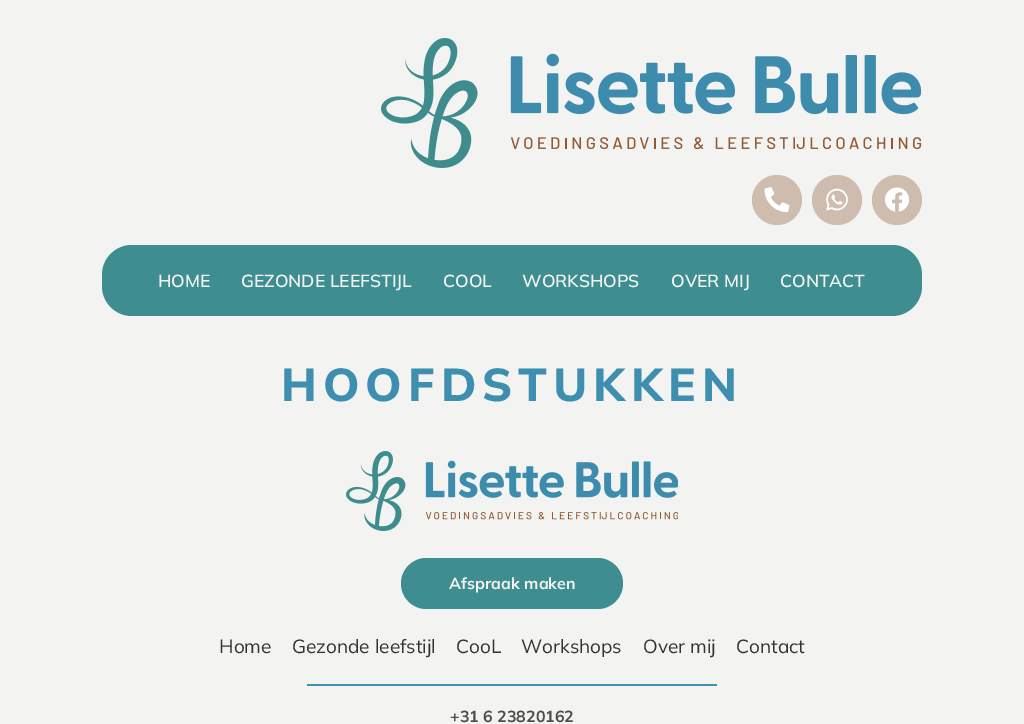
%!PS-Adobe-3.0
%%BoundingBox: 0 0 1024 724
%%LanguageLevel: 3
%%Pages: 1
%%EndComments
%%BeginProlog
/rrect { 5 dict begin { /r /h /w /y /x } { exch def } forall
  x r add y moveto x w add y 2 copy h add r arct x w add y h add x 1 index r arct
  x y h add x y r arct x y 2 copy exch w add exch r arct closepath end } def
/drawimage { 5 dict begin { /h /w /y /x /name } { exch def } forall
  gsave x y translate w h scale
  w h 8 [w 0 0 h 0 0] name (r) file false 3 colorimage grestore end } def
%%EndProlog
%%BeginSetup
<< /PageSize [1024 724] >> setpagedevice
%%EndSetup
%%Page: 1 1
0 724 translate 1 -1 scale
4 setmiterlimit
0.953 0.957 0.945 setrgbcolor
0 0 1024 724 rectfill
(images/1.raw) 381 38 541 130 drawimage
0.808 0.741 0.686 setrgbcolor
newpath 777 200 25 0 360 arc closepath fill
(images/2.raw) 764 187 26 26 drawimage
newpath 837 200 25 0 360 arc closepath fill
(images/3.raw) 826 188 22 23 drawimage
newpath 897 200 25 0 360 arc closepath fill
(images/4.raw) 884 187 26 25 drawimage
0.243 0.557 0.569 setrgbcolor
102 245 820 71 30 rrect fill
(images/5.raw) 346 451 332 80 drawimage
401 558 222 51 25.5 rrect fill
0.243 0.557 0.686 setrgbcolor
307 684 410 2 rectfill
/Mulish-SemiBold [17.5 0 0 -17.5 0 0] selectfont
0.953 0.957 0.945 setrgbcolor
158 287 moveto (HOME) show
241 287 moveto (GEZONDE LEEFSTIJL) show
443 287 moveto (COOL) show
522 287 moveto (WORKSHOPS) show
671 287 moveto (OVER MIJ) show
780 287 moveto (CONTACT) show
/Mulish-ExtraBold [46 0 0 -46 0 0] selectfont
0.243 0.557 0.686 setrgbcolor
281 401 moveto 6 0 (HOOFDSTUKKEN) ashow
/Mulish-Bold [16 0 0 -16 0 0] selectfont
0.953 0.957 0.945 setrgbcolor
449 589 moveto (Afspraak maken) show
/Mulish-Regular [19 0 0 -19 0 0] selectfont
0.2 setgray
219 653 moveto (Home) show
292 653 moveto (Gezonde leefstijl) show
456 653 moveto (CooL) show
521 653 moveto (Workshops) show
643 653 moveto (Over mij) show
736 653 moveto (Contact) show
/Mulish-Bold [16 0 0 -16 0 0] selectfont
0.306 setgray
450 722 moveto (+31 6 23820162) show
showpage
%%EOF
